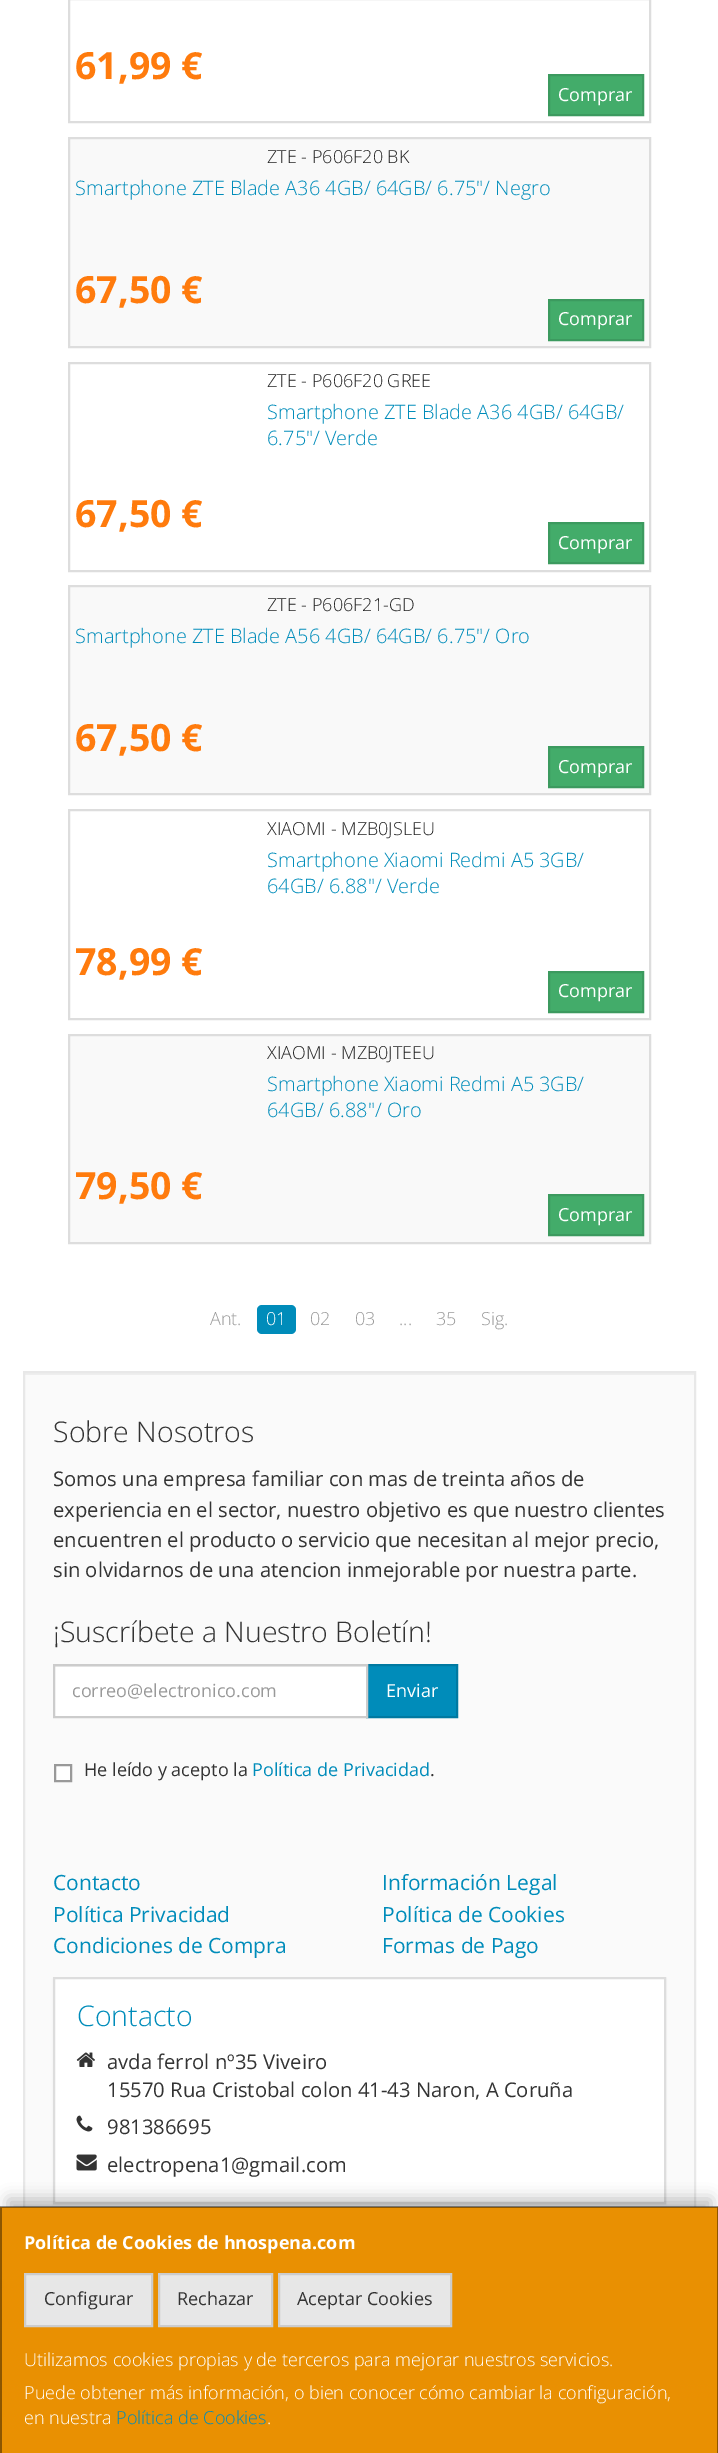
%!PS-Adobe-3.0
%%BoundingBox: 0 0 718 2453
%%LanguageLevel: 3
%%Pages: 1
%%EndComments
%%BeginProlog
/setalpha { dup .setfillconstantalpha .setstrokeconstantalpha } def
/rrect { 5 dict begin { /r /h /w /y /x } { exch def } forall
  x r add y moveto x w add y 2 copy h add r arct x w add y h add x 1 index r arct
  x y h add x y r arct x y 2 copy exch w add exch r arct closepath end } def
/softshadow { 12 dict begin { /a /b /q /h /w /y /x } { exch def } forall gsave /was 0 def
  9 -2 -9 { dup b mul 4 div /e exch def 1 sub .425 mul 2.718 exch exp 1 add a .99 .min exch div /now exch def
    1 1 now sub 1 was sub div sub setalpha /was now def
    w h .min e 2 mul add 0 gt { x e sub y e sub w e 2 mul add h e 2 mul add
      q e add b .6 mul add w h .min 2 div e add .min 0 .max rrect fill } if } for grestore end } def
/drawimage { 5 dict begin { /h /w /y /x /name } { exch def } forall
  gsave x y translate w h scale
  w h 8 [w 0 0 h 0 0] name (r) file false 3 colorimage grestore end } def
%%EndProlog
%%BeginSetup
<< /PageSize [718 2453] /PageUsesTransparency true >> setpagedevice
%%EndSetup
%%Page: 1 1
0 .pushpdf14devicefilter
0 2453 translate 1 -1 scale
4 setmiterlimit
1 setgray
0 0 718 2453 rectfill
0.867 setgray
2 setlinewidth
69 -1 581 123 rectstroke
0.263 0.675 0.416 setrgbcolor
newpath 549 75 moveto 643 75 lineto 643 115 lineto 549 115 lineto closepath gsave fill grestore
0.235 0.604 0.373 setrgbcolor
stroke
0.976 setgray
newpath 69 138 moveto 650 138 lineto 650 347 lineto 69 347 lineto closepath gsave fill grestore
0.867 setgray
stroke
0.263 0.675 0.416 setrgbcolor
newpath 549 300 moveto 643 300 lineto 643 340 lineto 549 340 lineto closepath gsave fill grestore
0.235 0.604 0.373 setrgbcolor
stroke
0.867 setgray
69 363 581 208 rectstroke
0.263 0.675 0.416 setrgbcolor
newpath 549 523 moveto 643 523 lineto 643 563 lineto 549 563 lineto closepath gsave fill grestore
0.235 0.604 0.373 setrgbcolor
stroke
0.976 setgray
newpath 69 586 moveto 650 586 lineto 650 794 lineto 69 794 lineto closepath gsave fill grestore
0.867 setgray
stroke
0.263 0.675 0.416 setrgbcolor
newpath 549 747 moveto 643 747 lineto 643 787 lineto 549 787 lineto closepath gsave fill grestore
0.235 0.604 0.373 setrgbcolor
stroke
0.867 setgray
69 810 581 209 rectstroke
0.263 0.675 0.416 setrgbcolor
newpath 549 972 moveto 643 972 lineto 643 1012 lineto 549 1012 lineto closepath gsave fill grestore
0.235 0.604 0.373 setrgbcolor
stroke
0.976 setgray
newpath 69 1035 moveto 650 1035 lineto 650 1243 lineto 69 1243 lineto closepath gsave fill grestore
0.867 setgray
stroke
0.263 0.675 0.416 setrgbcolor
newpath 549 1195 moveto 643 1195 lineto 643 1235 lineto 549 1235 lineto closepath gsave fill grestore
0.235 0.604 0.373 setrgbcolor
stroke
0 0.549 0.729 setrgbcolor
257 1305 39 29 5 rrect fill
0.98 setgray
25 1375 669 832 rectfill
0.933 setgray
24 1373 671 2 rectfill
0.91 setgray
24 1372 671 1009 rectstroke
1 setgray
55 1667 311 49 rectfill
0.925 setgray
54 1666 312 1 rectfill
0 0.549 0.729 setrgbcolor
newpath 367 1665 moveto 457 1665 lineto 457 1717 lineto 367 1717 lineto closepath gsave fill grestore
0 0.475 0.631 setrgbcolor
stroke
0.8 setgray
54 1665 313 52 rectstroke
1 setgray
newpath 55 1765 moveto 71 1765 lineto 71 1781 lineto 55 1781 lineto closepath gsave fill grestore
0.6 setgray
stroke
0 setgray
53 1979 613 226 0 1 0.05 softshadow
1 setgray
newpath 54 1978 moveto 665 1978 lineto 665 2203 lineto 54 2203 lineto closepath gsave fill grestore
0.867 setgray
stroke
(images/1.raw) 76 2052 19 15 drawimage
(images/2.raw) 76 2115 17 17 drawimage
(images/3.raw) 76 2154 21 17 drawimage
0 setgray
8 2199 703 233 0 7.5 0.25 softshadow
0.914 0.565 0.008 setrgbcolor
0 2207 718 246 rectfill
0.4 setalpha
0 setgray
newpath 0 2206 moveto 718 2206 lineto 717 2208 lineto 2 2208 lineto closepath fill
newpath 718 2206 moveto 718 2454 lineto 717 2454 lineto 717 2208 lineto closepath fill
newpath 0 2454 moveto 0 2206 lineto 2 2208 lineto 2 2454 lineto closepath fill
1 setalpha
0.906 setgray
newpath 25 2274 moveto 152 2274 lineto 152 2326 lineto 25 2326 lineto closepath gsave fill grestore
0.8 setgray
stroke
0.906 setgray
newpath 159 2274 moveto 272 2274 lineto 272 2326 lineto 159 2326 lineto closepath gsave fill grestore
0.8 setgray
stroke
0.906 setgray
newpath 279 2274 moveto 451 2274 lineto 451 2326 lineto 279 2326 lineto closepath gsave fill grestore
0.8 setgray
stroke
/OpenSans-Bold [37.5 0 0 -37.5 0 0] selectfont
1 0.482 0.051 setrgbcolor
75 79 moveto (61,99 €) show
/OpenSans-Regular [18 0 0 -18 0 0] selectfont
1 setgray
558 101 moveto (Comprar) show
/OpenSans-Light [18 0 0 -18 0 0] selectfont
0.133 setgray
267 163 moveto (ZTE - P606F20 BK) show
/OpenSans-Light [19.95 0 0 -19.95 0 0] selectfont
0 0.549 0.729 setrgbcolor
75 195 moveto (Smartphone ZTE Blade A36 4GB/ 64GB/ 6.75"/ Negro) show
/OpenSans-Bold [37.5 0 0 -37.5 0 0] selectfont
1 0.482 0.051 setrgbcolor
75 303 moveto (67,50 €) show
/OpenSans-Regular [18 0 0 -18 0 0] selectfont
1 setgray
558 325 moveto (Comprar) show
/OpenSans-Light [18 0 0 -18 0 0] selectfont
0.133 setgray
267 387 moveto (ZTE - P606F20 GREE) show
/OpenSans-Light [19.95 0 0 -19.95 0 0] selectfont
0 0.549 0.729 setrgbcolor
267 419 moveto (Smartphone ZTE Blade A36 4GB/ 64GB/) show
267 445 moveto (6.75"/ Verde) show
/OpenSans-Bold [37.5 0 0 -37.5 0 0] selectfont
1 0.482 0.051 setrgbcolor
75 527 moveto (67,50 €) show
/OpenSans-Regular [18 0 0 -18 0 0] selectfont
1 setgray
558 549 moveto (Comprar) show
/OpenSans-Light [18 0 0 -18 0 0] selectfont
0.133 setgray
267 611 moveto (ZTE - P606F21-GD) show
/OpenSans-Light [19.95 0 0 -19.95 0 0] selectfont
0 0.549 0.729 setrgbcolor
75 643 moveto (Smartphone ZTE Blade A56 4GB/ 64GB/ 6.75"/ Oro) show
/OpenSans-Bold [37.5 0 0 -37.5 0 0] selectfont
1 0.482 0.051 setrgbcolor
75 751 moveto (67,50 €) show
/OpenSans-Regular [18 0 0 -18 0 0] selectfont
1 setgray
558 773 moveto (Comprar) show
/OpenSans-Light [18 0 0 -18 0 0] selectfont
0.133 setgray
267 835 moveto (XIAOMI - MZB0JSLEU) show
/OpenSans-Light [19.95 0 0 -19.95 0 0] selectfont
0 0.549 0.729 setrgbcolor
267 867 moveto (Smartphone Xiaomi Redmi A5 3GB/) show
267 893 moveto (64GB/ 6.88"/ Verde) show
/OpenSans-Bold [37.5 0 0 -37.5 0 0] selectfont
1 0.482 0.051 setrgbcolor
75 975 moveto (78,99 €) show
/OpenSans-Regular [18 0 0 -18 0 0] selectfont
1 setgray
558 997 moveto (Comprar) show
/OpenSans-Light [18 0 0 -18 0 0] selectfont
0.133 setgray
267 1059 moveto (XIAOMI - MZB0JTEEU) show
/OpenSans-Light [19.95 0 0 -19.95 0 0] selectfont
0 0.549 0.729 setrgbcolor
267 1091 moveto (Smartphone Xiaomi Redmi A5 3GB/) show
267 1117 moveto (64GB/ 6.88"/ Oro) show
/OpenSans-Bold [37.5 0 0 -37.5 0 0] selectfont
1 0.482 0.051 setrgbcolor
75 1199 moveto (79,50 €) show
/OpenSans-Regular [18 0 0 -18 0 0] selectfont
1 setgray
558 1221 moveto (Comprar) show
/OpenSans-Light [18 0 0 -18 0 0] selectfont
0.6 setgray
210 1325 moveto (Ant.) show
1 setgray
266 1325 moveto (01) show
0.6 setgray
310 1325 moveto (02) show
355 1325 moveto (03) show
399 1325 moveto (...) show
436 1325 moveto (35) show
481 1325 moveto (Sig.) show
/OpenSans-Light [28.5 0 0 -28.5 0 0] selectfont
0.2 setgray
53 1442 moveto (Sobre Nosotros) show
/OpenSans-Regular [20.25 0 0 -20.25 0 0] selectfont
53 1486 moveto (Somos una empresa familiar con mas de treinta años de) show
53 1517 moveto (experiencia en el sector, nuestro objetivo es que nuestro clientes) show
53 1547 moveto (encuentren el producto o servicio que necesitan al mejor precio,) show
53 1577 moveto (sin olvidarnos de una atencion inmejorable por nuestra parte.) show
/OpenSans-Light [28.5 0 0 -28.5 0 0] selectfont
53 1642 moveto (¡Suscríbete a Nuestro Boletín!) show
/OpenSans-Regular [18 0 0 -18 0 0] selectfont
0.6 setgray
72 1697 moveto (correo@electronico.com) show
1 setgray
386 1697 moveto (Enviar) show
0.2 setgray
84 1776 moveto (He leído y acepto la) show
0 0.549 0.729 setrgbcolor
252 1776 moveto (Política de Privacidad) show
0.2 setgray
430 1776 moveto (.) show
/OpenSans-Regular [21 0 0 -21 0 0] selectfont
0 0.549 0.729 setrgbcolor
53 1890 moveto (Contacto) show
382 1890 moveto (Información Legal) show
53 1922 moveto (Política Privacidad) show
382 1922 moveto (Política de Cookies) show
53 1953 moveto (Condiciones de Compra) show
382 1953 moveto (Formas de Pago) show
/OpenSans-Light [28.5 0 0 -28.5 0 0] selectfont
77 2026 moveto (Contacto) show
/OpenSans-Regular [20.25 0 0 -20.25 0 0] selectfont
0.2 setgray
107 2069 moveto (avda ferrol nº35 Viveiro) show
107 2097 moveto (15570 Rua Cristobal colon 41-43 Naron, A Coruña) show
107 2134 moveto (981386695) show
107 2172 moveto (electropena1@gmail.com) show
/OpenSans-Bold [18 0 0 -18 0 0] selectfont
1 setgray
24 2249 moveto (Política de Cookies de hnospena.com) show
/OpenSans-Regular [18 0 0 -18 0 0] selectfont
0.2 setgray
44 2305 moveto (Configurar) show
177 2305 moveto (Rechazar) show
297 2305 moveto (Aceptar Cookies) show
/OpenSans-Light [18 0 0 -18 0 0] selectfont
1 setgray
24 2366 moveto (Utilizamos cookies propias y de terceros para mejorar nuestros servicios.) show
24 2399 moveto (Puede obtener más información, o bien conocer cómo cambiar la configuración,) show
24 2424 moveto (en nuestra) show
0 0.549 0.729 setrgbcolor
116 2424 moveto (Política de Cookies) show
1 setgray
267 2424 moveto (.) show
.poppdf14devicefilter showpage
%%EOF
